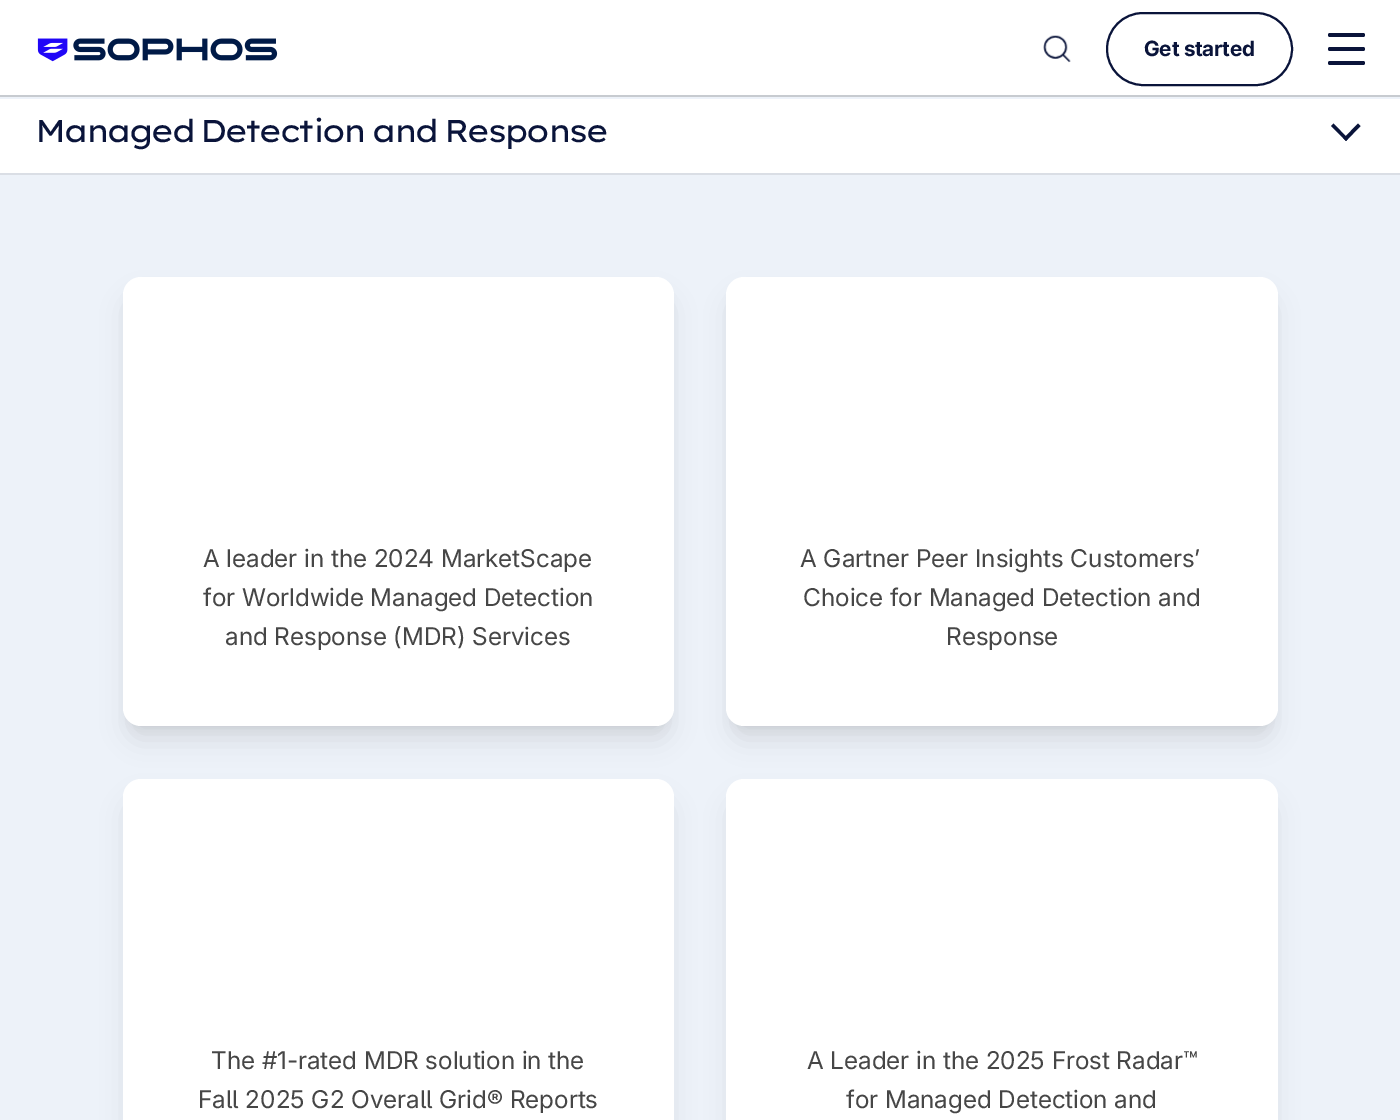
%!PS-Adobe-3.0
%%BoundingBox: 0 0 1400 1120
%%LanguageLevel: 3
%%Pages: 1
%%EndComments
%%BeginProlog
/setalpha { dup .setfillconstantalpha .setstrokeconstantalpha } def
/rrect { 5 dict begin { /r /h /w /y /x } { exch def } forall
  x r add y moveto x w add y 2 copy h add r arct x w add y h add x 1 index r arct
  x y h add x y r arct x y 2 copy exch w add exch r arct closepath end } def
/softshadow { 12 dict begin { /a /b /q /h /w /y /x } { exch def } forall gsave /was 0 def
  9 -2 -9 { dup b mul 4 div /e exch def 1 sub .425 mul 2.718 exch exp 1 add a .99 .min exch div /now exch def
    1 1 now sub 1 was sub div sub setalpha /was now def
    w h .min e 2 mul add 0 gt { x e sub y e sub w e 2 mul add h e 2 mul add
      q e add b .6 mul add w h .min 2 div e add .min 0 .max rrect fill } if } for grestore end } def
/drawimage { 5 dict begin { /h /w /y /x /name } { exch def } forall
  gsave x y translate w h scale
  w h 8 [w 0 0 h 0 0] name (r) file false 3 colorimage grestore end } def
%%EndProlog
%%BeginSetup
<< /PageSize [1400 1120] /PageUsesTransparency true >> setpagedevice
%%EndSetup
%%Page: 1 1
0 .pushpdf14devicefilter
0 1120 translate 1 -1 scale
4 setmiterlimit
0.929 0.949 0.976 setrgbcolor
0 0 1400 1120 rectfill
1 setgray
0 0 1400 173 rectfill
(images/1.raw) 37 38 241 24 drawimage
(images/2.raw) 1043 35 28 28 drawimage
0.039 0.078 0.227 setrgbcolor
2 setlinewidth
1107 13 185 72 36 rrect stroke
1328 33 37 4 2 rrect fill
1328 47 37 4 2 rrect fill
1328 61 37 4 2 rrect fill
0.929 0.949 0.976 setrgbcolor
0 97 1400 2 rectfill
0.78 0.796 0.816 setrgbcolor
0 95 1400 2 rectfill
0.039 0.078 0.227 setrgbcolor
newpath 1358 123.5 moveto 1360.5 126 lineto 1346 141 lineto 1343.5 138.5 lineto closepath fill
newpath 1333.5 123.5 moveto 1348 138.5 lineto 1346 141 lineto 1331 126 lineto closepath fill
0.855 0.871 0.898 setrgbcolor
0 173 1400 2 rectfill
0 setgray
130 291 537 435 11 5 0.1 softshadow
128 299 541 440 12 13 0.1 softshadow
1 setgray
123 277 551 449 18 rrect fill
0 setgray
733 291 538 435 11 5 0.1 softshadow
732 299 540 440 12 13 0.1 softshadow
1 setgray
726 277 552 449 18 rrect fill
0 setgray
128 802 541 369 12 13 0.1 softshadow
1 setgray
123 779 551 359 18 rrect fill
0 setgray
732 802 540 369 12 13 0.1 softshadow
1 setgray
726 779 552 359 18 rrect fill
/Inter-Bold [21 0 0 -21 0 0] selectfont
0.039 0.078 0.227 setrgbcolor
1144 56 moveto -0.25 0 (Get started) ashow
/LexendExa-Regular [31.5 0 0 -31.5 0 0] selectfont
35 142 moveto -2.5 0 (Managed) ashow
200 142 moveto -2.5 0 (Detection) ashow
372 142 moveto -2.5 0 (and) ashow
444 142 moveto -2.5 0 (Response) ashow
/Inter-Regular [24.5 0 0 -24.5 0 0] selectfont
0.275 setgray
203 567 moveto (A leader in the 2024 MarketScape) show
203 606 moveto (for Worldwide Managed Detection) show
225 645 moveto (and Response \(MDR\) Services) show
800 567 moveto (A Gartner Peer Insights Customers’) show
803 606 moveto (Choice for Managed Detection and) show
946 645 moveto (Response) show
211 1069 moveto (The #1-rated MDR solution in the) show
/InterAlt-Regular [24.5 0 0 -24.5 0 0] selectfont
198 1108 moveto (Fall 2025 G2 Overall Grid® Reports) show
/Inter-Regular [24.5 0 0 -24.5 0 0] selectfont
807 1069 moveto (A Leader in the 2025 Frost Radar™) show
846 1108 moveto (for Managed Detection and) show
.poppdf14devicefilter showpage
%%EOF
